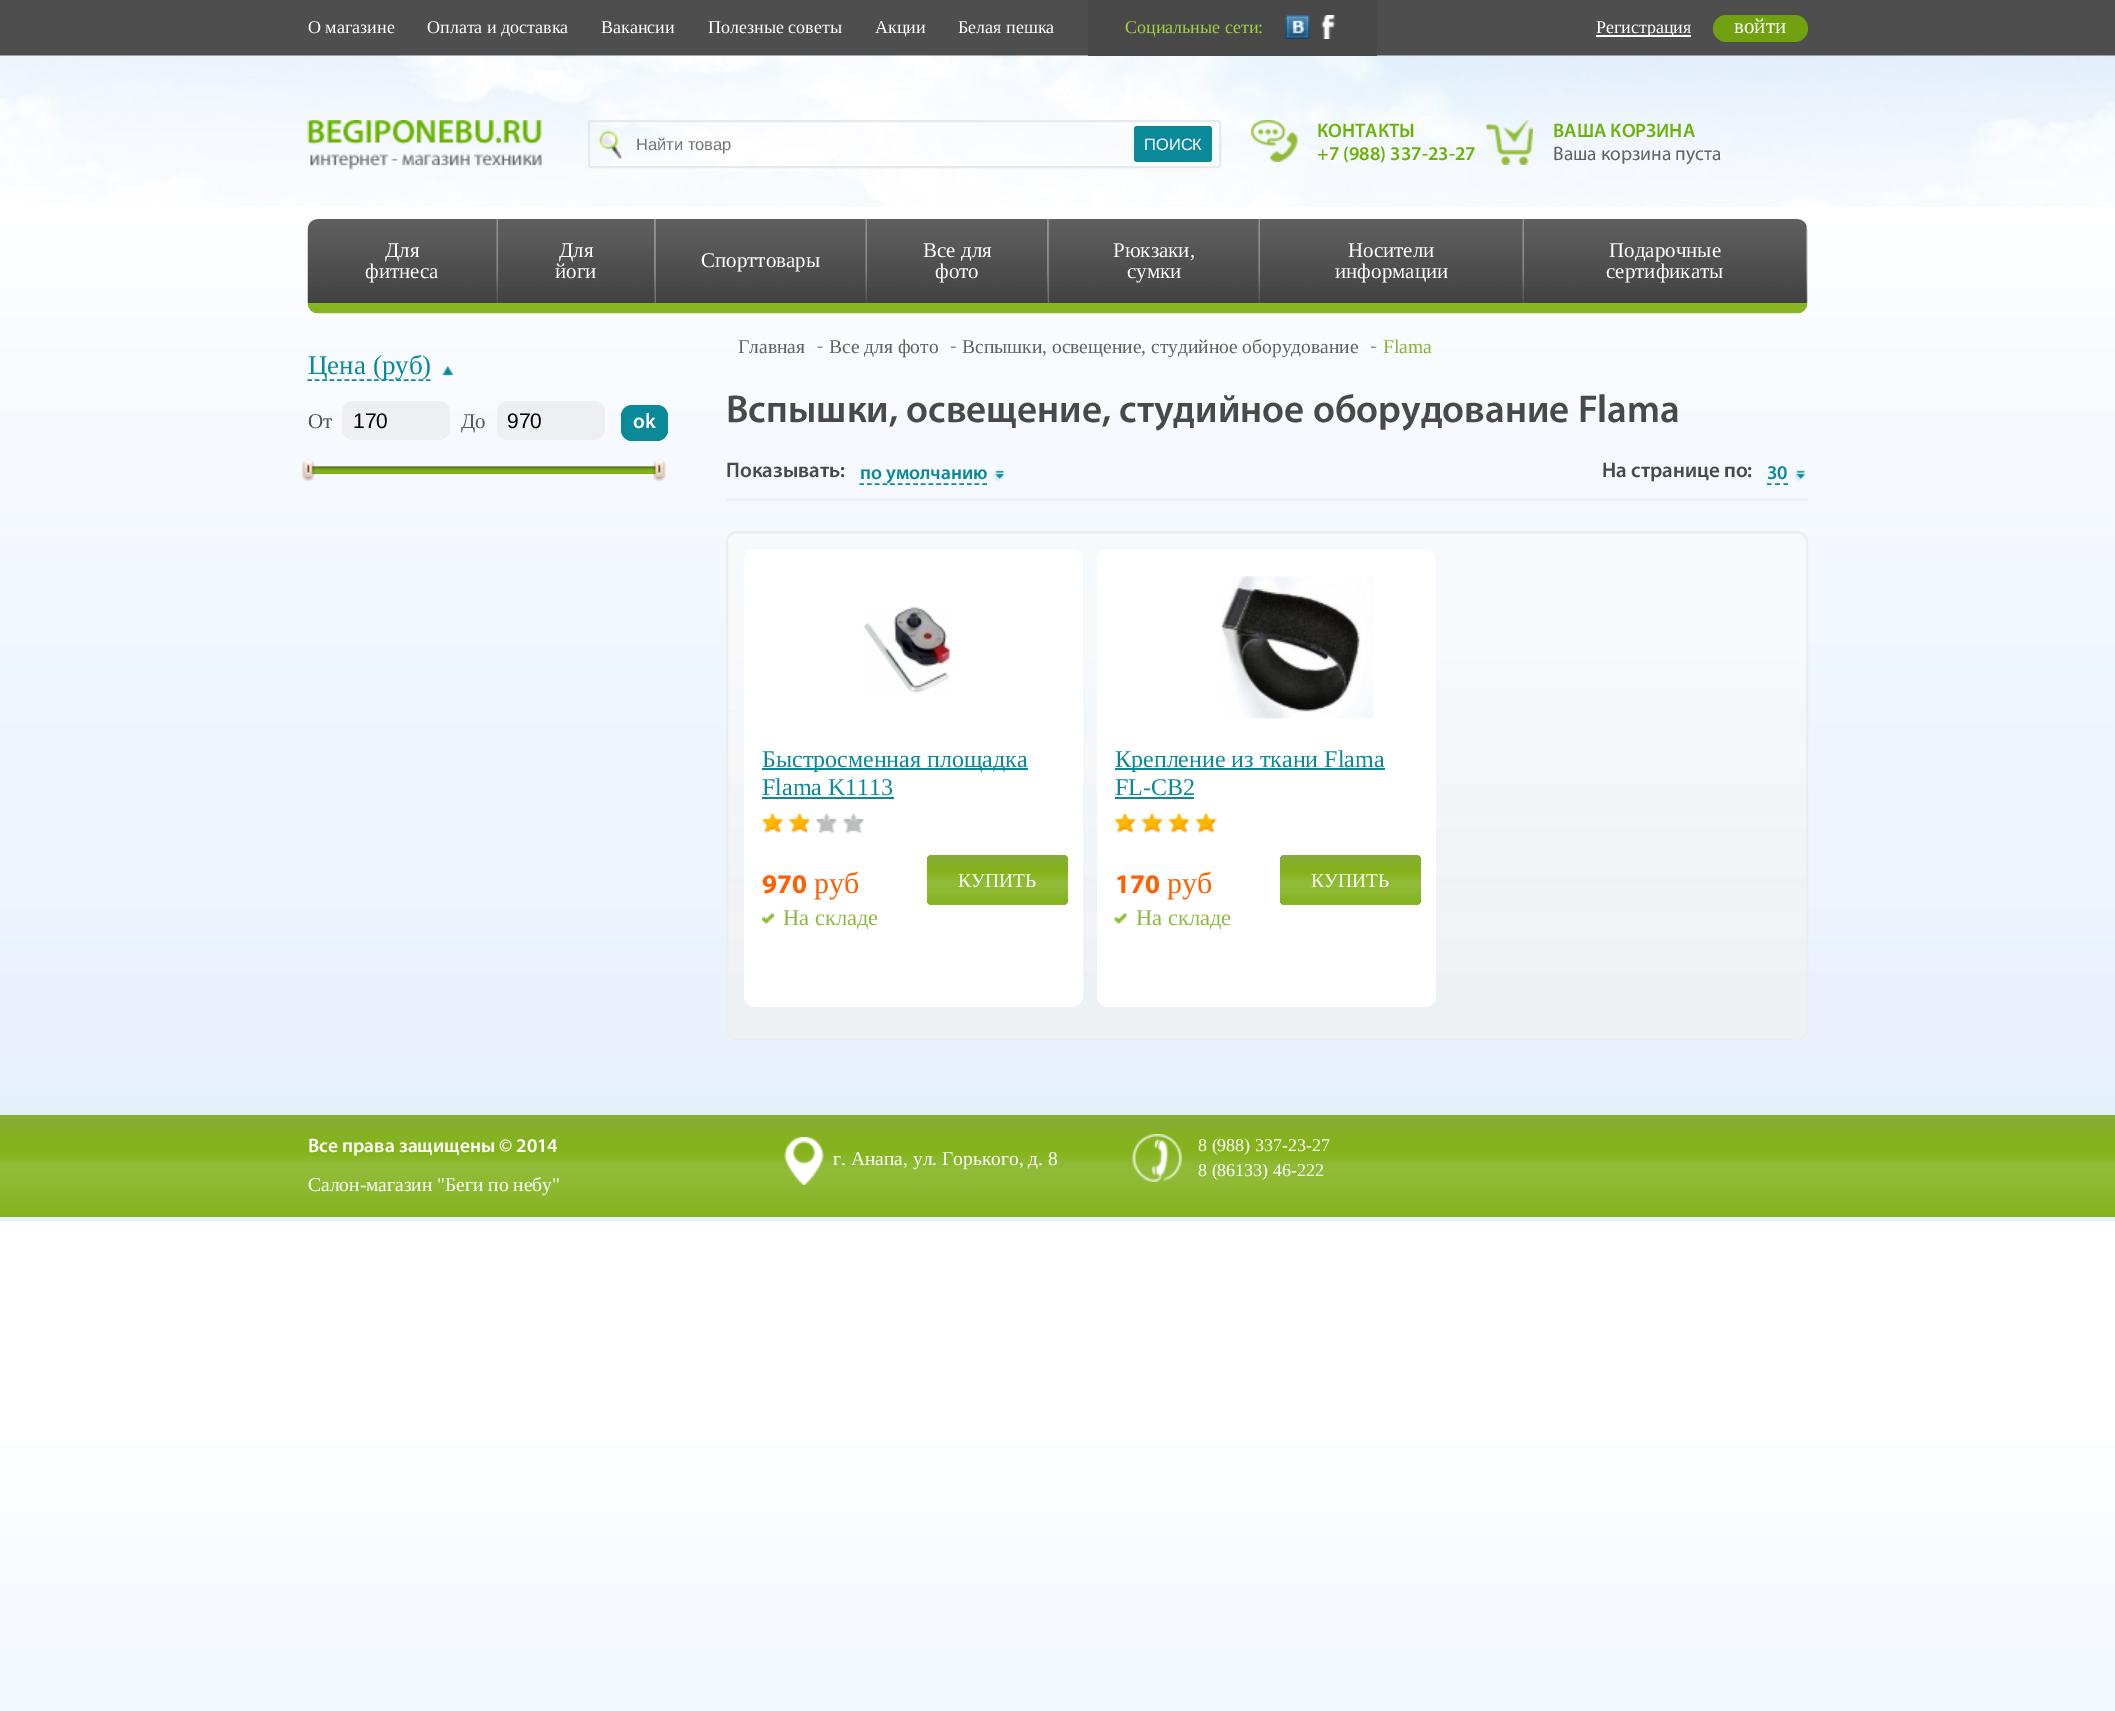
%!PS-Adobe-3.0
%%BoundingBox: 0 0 2115 1711
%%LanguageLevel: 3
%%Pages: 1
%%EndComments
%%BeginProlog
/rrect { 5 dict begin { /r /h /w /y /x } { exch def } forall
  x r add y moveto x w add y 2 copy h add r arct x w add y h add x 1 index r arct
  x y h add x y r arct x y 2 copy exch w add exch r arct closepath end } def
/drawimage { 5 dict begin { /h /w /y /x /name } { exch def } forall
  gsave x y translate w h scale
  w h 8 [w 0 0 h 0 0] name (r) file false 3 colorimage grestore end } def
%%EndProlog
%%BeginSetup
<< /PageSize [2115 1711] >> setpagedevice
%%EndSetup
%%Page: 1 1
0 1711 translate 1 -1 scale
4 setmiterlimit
1 setgray
0 0 2115 1711 rectfill
gsave newpath 0 224 moveto 2115 224 lineto 2115 1221 lineto 0 1221 lineto closepath clip newpath
<< /ShadingType 2 /ColorSpace /DeviceRGB /Coords [1058 0 1058 1221] /Extend [true true] /Function << /FunctionType 3 /Domain [0 1] /Functions [<< /FunctionType 2 /Domain [0 1] /C0 [1 1 1] /C1 [0.988 0.992 1] /N 1 >> << /FunctionType 2 /Domain [0 1] /C0 [0.988 0.992 1] /C1 [0.984 0.988 1] /N 1 >> << /FunctionType 2 /Domain [0 1] /C0 [0.973 0.988 1] /C1 [0.953 0.973 0.996] /N 1 >> << /FunctionType 2 /Domain [0 1] /C0 [0.941 0.969 0.992] /C1 [0.945 0.965 0.988] /N 1 >> << /FunctionType 2 /Domain [0 1] /C0 [0.937 0.973 1] /C1 [0.929 0.957 0.988] /N 1 >> << /FunctionType 2 /Domain [0 1] /C0 [0.929 0.957 0.988] /C1 [0.922 0.957 0.992] /N 1 >> << /FunctionType 2 /Domain [0 1] /C0 [0.91 0.961 0.992] /C1 [0.918 0.949 0.992] /N 1 >> << /FunctionType 2 /Domain [0 1] /C0 [0.918 0.949 0.992] /C1 [0.91 0.949 0.988] /N 1 >> << /FunctionType 2 /Domain [0 1] /C0 [0.898 0.949 0.984] /C1 [0.894 0.941 0.988] /N 1 >>] /Bounds [0.22 0.26 0.51 0.54 0.66 0.77 0.79 0.89] /Encode [0 1 0 1 0 1 0 1 0 1 0 1 0 1 0 1 0 1] >> >> shfill grestore
gsave newpath 0 1445 moveto 2115 1445 lineto 2115 1711 lineto 0 1711 lineto closepath clip newpath
<< /ShadingType 2 /ColorSpace /DeviceRGB /Coords [1058 1221 1058 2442] /Extend [true true] /Function << /FunctionType 3 /Domain [0 1] /Functions [<< /FunctionType 2 /Domain [0 1] /C0 [1 1 1] /C1 [0.988 0.992 1] /N 1 >> << /FunctionType 2 /Domain [0 1] /C0 [0.988 0.992 1] /C1 [0.984 0.988 1] /N 1 >> << /FunctionType 2 /Domain [0 1] /C0 [0.973 0.988 1] /C1 [0.953 0.973 0.996] /N 1 >> << /FunctionType 2 /Domain [0 1] /C0 [0.941 0.969 0.992] /C1 [0.945 0.965 0.988] /N 1 >> << /FunctionType 2 /Domain [0 1] /C0 [0.937 0.973 1] /C1 [0.929 0.957 0.988] /N 1 >> << /FunctionType 2 /Domain [0 1] /C0 [0.929 0.957 0.988] /C1 [0.922 0.957 0.992] /N 1 >> << /FunctionType 2 /Domain [0 1] /C0 [0.91 0.961 0.992] /C1 [0.918 0.949 0.992] /N 1 >> << /FunctionType 2 /Domain [0 1] /C0 [0.918 0.949 0.992] /C1 [0.91 0.949 0.988] /N 1 >> << /FunctionType 2 /Domain [0 1] /C0 [0.898 0.949 0.984] /C1 [0.894 0.941 0.988] /N 1 >>] /Bounds [0.22 0.26 0.51 0.54 0.66 0.77 0.79 0.89] /Encode [0 1 0 1 0 1 0 1 0 1 0 1 0 1 0 1 0 1] >> >> shfill grestore
0.306 setgray
0 0 2115 56 rectfill
(images/3.raw) 0 55 2115 152 drawimage
0.282 setgray
1088 0 289 56 rectfill
(images/1.raw) 1285 15 25 24 drawimage
(images/2.raw) 1321 15 14 24 drawimage
1 setgray
1596 35 95 2 rectfill
0.439 0.631 0.063 setrgbcolor
1713 15 95 27 13.5 rrect fill
(images/4.raw) 307 120 235 50 drawimage
(images/5.raw) 598 130 25 29 drawimage
0.902 0.918 0.922 setrgbcolor
2 setlinewidth
589 121 631 46 2 rrect stroke
0.039 0.537 0.6 setrgbcolor
1134 126 78 36 3 rrect fill
(images/6.raw) 1251 120 47 42 drawimage
(images/7.raw) 1486 120 47 45 drawimage
(images/8.raw) 307 303 1501 11 drawimage
(images/9.raw) 307 219 191 84 drawimage
(images/10.raw) 496 219 2 84 drawimage
(images/11.raw) 498 219 158 84 drawimage
(images/12.raw) 654 219 2 84 drawimage
(images/13.raw) 655 219 212 84 drawimage
(images/14.raw) 865 219 2 84 drawimage
(images/15.raw) 867 219 182 84 drawimage
(images/16.raw) 1047 219 2 84 drawimage
(images/17.raw) 1048 219 212 84 drawimage
(images/14.raw) 1258 219 2 84 drawimage
(images/18.raw) 1260 219 264 84 drawimage
(images/19.raw) 1522 219 2 84 drawimage
(images/20.raw) 1524 219 284 84 drawimage
(images/21.raw) 1806 224 2 79 drawimage
1.5 setlinewidth
[4.5 2.91] 0 setdash
newpath 307.5 380 moveto 430.5 380 lineto stroke
(images/22.raw) 442 366 11 10 drawimage
0.933 0.937 0.941 setrgbcolor
342 401 108 39 11 rrect fill
497 401 108 39 11 rrect fill
0.039 0.537 0.6 setrgbcolor
621 405 47 36 11 rrect fill
(images/23.raw) 311 466 345 1 drawimage
(images/25.raw) 311 466 345 8 drawimage
(images/24.raw) 301 459 14 23 drawimage
(images/26.raw) 652 459 14 23 drawimage
(images/27.raw) 817 346 7 2 drawimage
(images/28.raw) 951 346 6 2 drawimage
(images/28.raw) 1371 346 6 2 drawimage
0.922 0.945 0.961 setrgbcolor
726 498 1082 3 rectfill
(images/29.raw) 993 470 11 12 drawimage
0.039 0.537 0.6 setrgbcolor
[4.5 3.18] 0 setdash
newpath 859.5 484 moveto 987 484 lineto stroke
(images/29.raw) 1794 470 11 12 drawimage
[] 0 setdash
newpath 1767 484 moveto 1771.5 484 lineto 1775 484 moveto 1780 484 lineto 1783.5 484 moveto 1788 484 lineto stroke
gsave
726 531 1082 509 11 rrect clip newpath
gsave newpath 726 533 moveto 1808 533 lineto 1808 1038 lineto 726 1038 lineto closepath clip newpath
<< /ShadingType 2 /ColorSpace /DeviceRGB /Coords [1267 532 1267 1038] /Extend [true true] /Function << /FunctionType 3 /Domain [0 1] /Functions [<< /FunctionType 2 /Domain [0 1] /C0 [0.973 0.984 0.992] /C1 [0.969 0.973 0.984] /N 1 >> << /FunctionType 2 /Domain [0 1] /C0 [0.969 0.973 0.984] /C1 [0.957 0.973 0.984] /N 1 >> << /FunctionType 2 /Domain [0 1] /C0 [0.957 0.973 0.984] /C1 [0.965 0.973 0.98] /N 1 >> << /FunctionType 2 /Domain [0 1] /C0 [0.953 0.969 0.976] /C1 [0.961 0.969 0.98] /N 1 >> << /FunctionType 2 /Domain [0 1] /C0 [0.961 0.969 0.98] /C1 [0.957 0.965 0.976] /N 1 >> << /FunctionType 2 /Domain [0 1] /C0 [0.957 0.965 0.976] /C1 [0.945 0.961 0.969] /N 1 >> << /FunctionType 2 /Domain [0 1] /C0 [0.945 0.961 0.969] /C1 [0.953 0.961 0.973] /N 1 >> << /FunctionType 2 /Domain [0 1] /C0 [0.953 0.961 0.973] /C1 [0.941 0.957 0.965] /N 1 >> << /FunctionType 2 /Domain [0 1] /C0 [0.941 0.957 0.965] /C1 [0.949 0.957 0.969] /N 1 >> << /FunctionType 2 /Domain [0 1] /C0 [0.937 0.953 0.969] /C1 [0.941 0.949 0.961] /N 1 >> << /FunctionType 2 /Domain [0 1] /C0 [0.941 0.949 0.961] /C1 [0.945 0.953 0.965] /N 1 >> << /FunctionType 2 /Domain [0 1] /C0 [0.945 0.953 0.965] /C1 [0.937 0.945 0.957] /N 1 >> << /FunctionType 2 /Domain [0 1] /C0 [0.937 0.945 0.957] /C1 [0.941 0.949 0.961] /N 1 >> << /FunctionType 2 /Domain [0 1] /C0 [0.929 0.945 0.957] /C1 [0.937 0.945 0.961] /N 1 >>] /Bounds [0.3 0.32 0.35 0.42 0.49 0.51 0.58 0.6 0.68 0.7 0.8 0.81 0.87] /Encode [0 1 0 1 0 1 0 1 0 1 0 1 0 1 0 1 0 1 0 1 0 1 0 1 0 1 0 1] >> >> shfill grestore
grestore
0.918 0.933 0.945 setrgbcolor
2 setlinewidth
727 532 1080 507 10 rrect stroke
1 setgray
744 549 339 458 11 rrect fill
(images/30.raw) 863 607 90 87 drawimage
0.039 0.537 0.6 setrgbcolor
762 768 266 2 rectfill
762 797 132 2 rectfill
(images/31.raw) 762 813 21 20 drawimage
(images/31.raw) 789 813 21 20 drawimage
(images/32.raw) 816 813 21 20 drawimage
(images/32.raw) 843 813 21 20 drawimage
(images/33.raw) 762 913 12 11 drawimage
gsave 927 855 141 50 5 rrect clip newpath
<< /ShadingType 2 /ColorSpace /DeviceRGB /Coords [998 855 998 905] /Extend [true true] /Function << /FunctionType 3 /Domain [0 1] /Functions [<< /FunctionType 2 /Domain [0 1] /C0 [0.541 0.686 0.247] /C1 [0.522 0.675 0.212] /N 1 >> << /FunctionType 2 /Domain [0 1] /C0 [0.522 0.675 0.212] /C1 [0.525 0.682 0.192] /N 1 >> << /FunctionType 2 /Domain [0 1] /C0 [0.525 0.682 0.192] /C1 [0.514 0.686 0.165] /N 1 >> << /FunctionType 2 /Domain [0 1] /C0 [0.514 0.686 0.165] /C1 [0.522 0.694 0.114] /N 1 >> << /FunctionType 2 /Domain [0 1] /C0 [0.522 0.694 0.114] /C1 [0.518 0.702 0.122] /N 1 >> << /FunctionType 2 /Domain [0 1] /C0 [0.518 0.702 0.122] /C1 [0.514 0.702 0.106] /N 1 >> << /FunctionType 2 /Domain [0 1] /C0 [0.514 0.702 0.106] /C1 [0.518 0.702 0.106] /N 1 >> << /FunctionType 2 /Domain [0 1] /C0 [0.518 0.702 0.106] /C1 [0.525 0.71 0.118] /N 1 >> << /FunctionType 2 /Domain [0 1] /C0 [0.525 0.71 0.118] /C1 [0.565 0.729 0.204] /N 1 >> << /FunctionType 2 /Domain [0 1] /C0 [0.565 0.729 0.204] /C1 [0.569 0.733 0.22] /N 1 >> << /FunctionType 2 /Domain [0 1] /C0 [0.569 0.733 0.22] /C1 [0.553 0.729 0.192] /N 1 >> << /FunctionType 2 /Domain [0 1] /C0 [0.553 0.729 0.192] /C1 [0.529 0.71 0.145] /N 1 >> << /FunctionType 2 /Domain [0 1] /C0 [0.529 0.71 0.145] /C1 [0.518 0.702 0.118] /N 1 >> << /FunctionType 2 /Domain [0 1] /C0 [0.518 0.702 0.118] /C1 [0.545 0.722 0.169] /N 1 >>] /Bounds [0.02 0.1 0.15 0.28 0.3 0.32 0.35 0.38 0.5 0.58 0.73 0.87 0.98] /Encode [0 1 0 1 0 1 0 1 0 1 0 1 0 1 0 1 0 1 0 1 0 1 0 1 0 1 0 1] >> >> shfill grestore
1 setgray
1097 549 339 458 11 rrect fill
(images/34.raw) 1220 576 154 143 drawimage
0.039 0.537 0.6 setrgbcolor
1115 768 270 2 rectfill
1115 797 79 2 rectfill
(images/35.raw) 1114 813 22 20 drawimage
(images/35.raw) 1141 813 22 20 drawimage
(images/35.raw) 1168 813 22 20 drawimage
(images/35.raw) 1195 813 22 20 drawimage
(images/36.raw) 1114 913 13 11 drawimage
gsave 1280 855 141 50 5 rrect clip newpath
<< /ShadingType 2 /ColorSpace /DeviceRGB /Coords [1350 855 1350 905] /Extend [true true] /Function << /FunctionType 3 /Domain [0 1] /Functions [<< /FunctionType 2 /Domain [0 1] /C0 [0.541 0.686 0.247] /C1 [0.522 0.675 0.212] /N 1 >> << /FunctionType 2 /Domain [0 1] /C0 [0.522 0.675 0.212] /C1 [0.525 0.682 0.192] /N 1 >> << /FunctionType 2 /Domain [0 1] /C0 [0.525 0.682 0.192] /C1 [0.514 0.686 0.165] /N 1 >> << /FunctionType 2 /Domain [0 1] /C0 [0.514 0.686 0.165] /C1 [0.522 0.694 0.114] /N 1 >> << /FunctionType 2 /Domain [0 1] /C0 [0.522 0.694 0.114] /C1 [0.518 0.702 0.122] /N 1 >> << /FunctionType 2 /Domain [0 1] /C0 [0.518 0.702 0.122] /C1 [0.514 0.702 0.106] /N 1 >> << /FunctionType 2 /Domain [0 1] /C0 [0.514 0.702 0.106] /C1 [0.518 0.702 0.106] /N 1 >> << /FunctionType 2 /Domain [0 1] /C0 [0.518 0.702 0.106] /C1 [0.525 0.71 0.118] /N 1 >> << /FunctionType 2 /Domain [0 1] /C0 [0.525 0.71 0.118] /C1 [0.565 0.729 0.204] /N 1 >> << /FunctionType 2 /Domain [0 1] /C0 [0.565 0.729 0.204] /C1 [0.569 0.733 0.22] /N 1 >> << /FunctionType 2 /Domain [0 1] /C0 [0.569 0.733 0.22] /C1 [0.553 0.729 0.192] /N 1 >> << /FunctionType 2 /Domain [0 1] /C0 [0.553 0.729 0.192] /C1 [0.529 0.71 0.145] /N 1 >> << /FunctionType 2 /Domain [0 1] /C0 [0.529 0.71 0.145] /C1 [0.518 0.702 0.118] /N 1 >> << /FunctionType 2 /Domain [0 1] /C0 [0.518 0.702 0.118] /C1 [0.545 0.722 0.169] /N 1 >>] /Bounds [0.02 0.1 0.15 0.28 0.3 0.32 0.35 0.38 0.5 0.58 0.73 0.87 0.98] /Encode [0 1 0 1 0 1 0 1 0 1 0 1 0 1 0 1 0 1 0 1 0 1 0 1 0 1 0 1] >> >> shfill grestore
gsave newpath 0 1115 moveto 2115 1115 lineto 2115 1217 lineto 0 1217 lineto closepath clip newpath
<< /ShadingType 2 /ColorSpace /DeviceRGB /Coords [1058 1114 1058 1217] /Extend [true true] /Function << /FunctionType 3 /Domain [0 1] /Functions [<< /FunctionType 2 /Domain [0 1] /C0 [0.545 0.69 0.235] /C1 [0.525 0.671 0.216] /N 1 >> << /FunctionType 2 /Domain [0 1] /C0 [0.522 0.667 0.212] /C1 [0.529 0.675 0.22] /N 1 >> << /FunctionType 2 /Domain [0 1] /C0 [0.522 0.671 0.204] /C1 [0.529 0.678 0.212] /N 1 >> << /FunctionType 2 /Domain [0 1] /C0 [0.529 0.678 0.212] /C1 [0.522 0.678 0.196] /N 1 >> << /FunctionType 2 /Domain [0 1] /C0 [0.522 0.678 0.196] /C1 [0.522 0.698 0.141] /N 1 >> << /FunctionType 2 /Domain [0 1] /C0 [0.522 0.698 0.141] /C1 [0.522 0.702 0.11] /N 1 >> << /FunctionType 2 /Domain [0 1] /C0 [0.522 0.702 0.11] /C1 [0.525 0.706 0.118] /N 1 >> << /FunctionType 2 /Domain [0 1] /C0 [0.525 0.706 0.118] /C1 [0.561 0.729 0.208] /N 1 >> << /FunctionType 2 /Domain [0 1] /C0 [0.561 0.729 0.208] /C1 [0.565 0.733 0.22] /N 1 >> << /FunctionType 2 /Domain [0 1] /C0 [0.565 0.733 0.22] /C1 [0.557 0.729 0.2] /N 1 >> << /FunctionType 2 /Domain [0 1] /C0 [0.557 0.729 0.2] /C1 [0.545 0.718 0.173] /N 1 >> << /FunctionType 2 /Domain [0 1] /C0 [0.545 0.718 0.173] /C1 [0.541 0.718 0.161] /N 1 >> << /FunctionType 2 /Domain [0 1] /C0 [0.541 0.718 0.161] /C1 [0.541 0.714 0.169] /N 1 >> << /FunctionType 2 /Domain [0 1] /C0 [0.541 0.714 0.169] /C1 [0.533 0.71 0.141] /N 1 >> << /FunctionType 2 /Domain [0 1] /C0 [0.533 0.71 0.141] /C1 [0.529 0.706 0.145] /N 1 >> << /FunctionType 2 /Domain [0 1] /C0 [0.529 0.706 0.145] /C1 [0.525 0.706 0.125] /N 1 >> << /FunctionType 2 /Domain [0 1] /C0 [0.525 0.706 0.125] /C1 [0.522 0.702 0.122] /N 1 >>] /Bounds [0.01 0.02 0.03 0.09 0.2 0.31 0.38 0.49 0.53 0.71 0.79 0.8 0.82 0.88 0.91 0.93] /Encode [0 1 0 1 0 1 0 1 0 1 0 1 0 1 0 1 0 1 0 1 0 1 0 1 0 1 0 1 0 1 0 1 0 1] >> >> shfill grestore
(images/37.raw) 784 1137 40 48 drawimage
(images/38.raw) 1132 1134 50 48 drawimage
/LiberationSerif-Regular [18 0 0 -18 0 0] selectfont
1 setgray
308 33 moveto (О магазине) show
427 33 moveto (Оплата и доставка) show
601 33 moveto (Вакансии) show
708 33 moveto (Полезные советы) show
875 33 moveto (Акции) show
958 33 moveto (Белая пешка) show
0.627 0.824 0.247 setrgbcolor
1125 33 moveto (Социальные сети:) show
1 setgray
1596 33 moveto (Регистрация) show
/LiberationSerif-Regular [21 0 0 -21 0 0] selectfont
1734 33 moveto (войти) show
/LiberationSans-Regular [16.5 0 0 -16.5 0 0] selectfont
0.459 setgray
636 150 moveto (Найти товар) show
1 setgray
1144 150 moveto (ПОИСК) show
/Myriad-SemiBold [19.5 0 0 -19.5 0 0] selectfont
0.42 0.702 0.039 setrgbcolor
1317 137 moveto (КОНТАКТЫ) show
1317 160 moveto (+7 \(988\) 337-23-27) show
1553 137 moveto (ВАША КОРЗИНА) show
/Myriad-Regular [19.5 0 0 -19.5 0 0] selectfont
0.384 setgray
1553 160 moveto (Ваша корзина пуста) show
/LiberationSerif-Regular [21 0 0 -21 0 0] selectfont
1 setgray
385 257 moveto (Для) show
365 278 moveto (фитнеса) show
559 257 moveto (Для) show
555 278 moveto (йоги) show
701 267 moveto (Спорттовары) show
923 257 moveto (Все для) show
935 278 moveto (фото) show
1113 257 moveto (Рюкзаки,) show
1127 278 moveto (сумки) show
1348 257 moveto (Носители) show
1335 278 moveto (информации) show
1609 257 moveto (Подарочные) show
1606 278 moveto (сертификаты) show
/LiberationSerif-Regular [27 0 0 -27 0 0] selectfont
0.039 0.537 0.6 setrgbcolor
308 374 moveto (Цена \(руб\)) show
/LiberationSerif-Regular [21 0 0 -21 0 0] selectfont
0.341 setgray
308 428 moveto (От) show
/LiberationSans-Regular [21 0 0 -21 0 0] selectfont
0 setgray
353 428 moveto (170) show
/LiberationSerif-Regular [21 0 0 -21 0 0] selectfont
0.341 setgray
461 428 moveto (До) show
/LiberationSans-Regular [21 0 0 -21 0 0] selectfont
0 setgray
507 428 moveto (970) show
/Myriad-SemiBold [21 0 0 -21 0 0] selectfont
1 setgray
633 428 moveto (ok) show
/LiberationSerif-Regular [19.5 0 0 -19.5 0 0] selectfont
0.384 setgray
738 353 moveto (Главная) show
829 353 moveto (Все для фото) show
962 353 moveto (Вспышки, освещение, студийное оборудование) show
0.529 0.702 0.196 setrgbcolor
1383 353 moveto (Flama) show
/Myriad-SemiBold [39 0 0 -39 0 0] selectfont
0.286 setgray
726 422 moveto (Вспышки, освещение, студийное оборудование Flama) show
/Myriad-SemiBold [21 0 0 -21 0 0] selectfont
726 477 moveto (Показывать:) show
/Myriad-SemiBold [19.5 0 0 -19.5 0 0] selectfont
0.039 0.537 0.6 setrgbcolor
860 479 moveto (по умолчанию) show
/Myriad-SemiBold [21 0 0 -21 0 0] selectfont
0.286 setgray
1602 477 moveto (На странице по:) show
/Myriad-SemiBold [19.5 0 0 -19.5 0 0] selectfont
0.039 0.537 0.6 setrgbcolor
1767 479 moveto (30) show
/LiberationSerif-Regular [24 0 0 -24 0 0] selectfont
762 767 moveto (Быстросменная площадка) show
762 795 moveto (Flama K1113) show
/Myriad-Bold [27 0 0 -27 0 0] selectfont
1 0.376 0.008 setrgbcolor
762 893 moveto (970) show
/LiberationSerif-Regular [30 0 0 -30 0 0] selectfont
814 893 moveto (руб) show
/LiberationSerif-Regular [22.5 0 0 -22.5 0 0] selectfont
0.569 0.729 0.259 setrgbcolor
783 925 moveto (На складе) show
/LiberationSerif-Regular [19.5 0 0 -19.5 0 0] selectfont
1 setgray
958 887 moveto (КУПИТЬ) show
/LiberationSerif-Regular [24 0 0 -24 0 0] selectfont
0.039 0.537 0.6 setrgbcolor
1115 767 moveto (Крепление из ткани Flama) show
1115 795 moveto (FL-СB2) show
/Myriad-Bold [27 0 0 -27 0 0] selectfont
1 0.376 0.008 setrgbcolor
1115 893 moveto (170) show
/LiberationSerif-Regular [30 0 0 -30 0 0] selectfont
1167 893 moveto (руб) show
/LiberationSerif-Regular [22.5 0 0 -22.5 0 0] selectfont
0.569 0.729 0.259 setrgbcolor
1136 925 moveto (На складе) show
/LiberationSerif-Regular [19.5 0 0 -19.5 0 0] selectfont
1 setgray
1311 887 moveto (КУПИТЬ) show
/Myriad-SemiBold [19.5 0 0 -19.5 0 0] selectfont
308 1152 moveto (Все права защищены © 2014) show
/LiberationSerif-Regular [19.5 0 0 -19.5 0 0] selectfont
308 1191 moveto (Салон-магазин "Беги по небу") show
833 1165 moveto (г. Анапа, ул. Горького, д. 8) show
/LiberationSerif-Regular [18 0 0 -18 0 0] selectfont
1198 1151 moveto (8 \(988\) 337-23-27) show
1198 1176 moveto (8 \(86133\) 46-222) show
showpage
%%EOF
